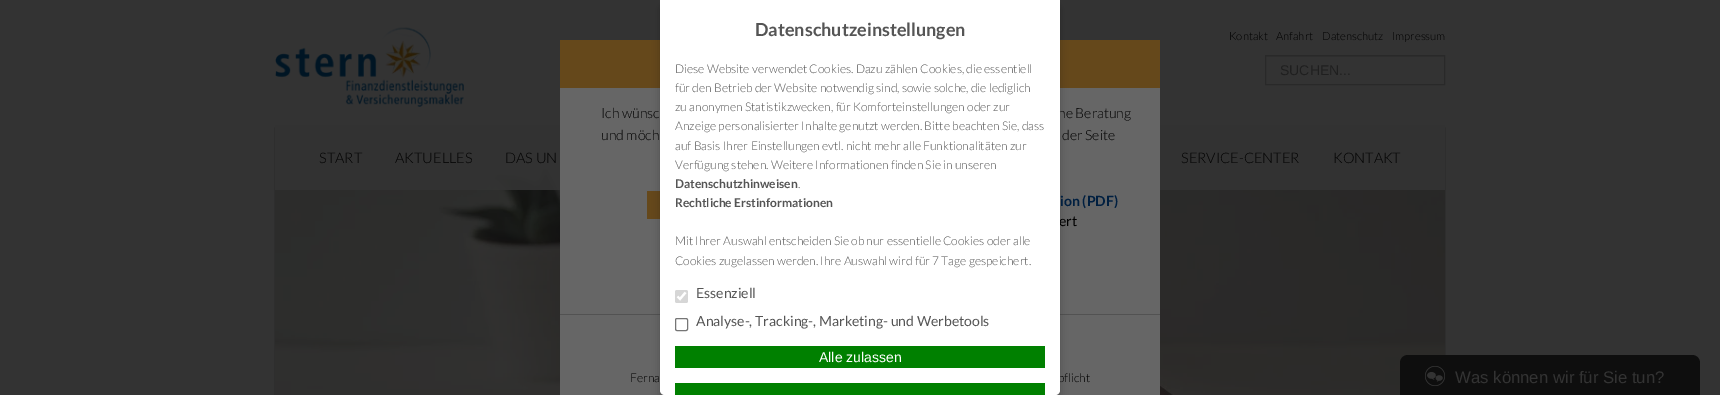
%!PS-Adobe-3.0
%%BoundingBox: 0 0 1720 395
%%LanguageLevel: 3
%%Pages: 1
%%EndComments
%%BeginProlog
/setalpha { dup .setfillconstantalpha .setstrokeconstantalpha } def
/rrect { 5 dict begin { /r /h /w /y /x } { exch def } forall
  x r add y moveto x w add y 2 copy h add r arct x w add y h add x 1 index r arct
  x y h add x y r arct x y 2 copy exch w add exch r arct closepath end } def
/softshadow { 12 dict begin { /a /b /q /h /w /y /x } { exch def } forall gsave /was 0 def
  9 -2 -9 { dup b mul 4 div /e exch def 1 sub .425 mul 2.718 exch exp 1 add a .99 .min exch div /now exch def
    1 1 now sub 1 was sub div sub setalpha /was now def
    w h .min e 2 mul add 0 gt { x e sub y e sub w e 2 mul add h e 2 mul add
      q e add b .6 mul add w h .min 2 div e add .min 0 .max rrect fill } if } for grestore end } def
/drawimage { 5 dict begin { /h /w /y /x /name } { exch def } forall
  gsave x y translate w h scale
  w h 8 [w 0 0 h 0 0] name (r) file false 3 colorimage grestore end } def
%%EndProlog
%%BeginSetup
<< /PageSize [1720 395] /PageUsesTransparency true >> setpagedevice
%%EndSetup
%%Page: 1 1
0 .pushpdf14devicefilter
0 395 translate 1 -1 scale
4 setmiterlimit
0.2 setgray
0 0 1720 395 rectfill
0 setgray
275 128 1170 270 0 1 0.3 softshadow
(images/2.raw) 275 125 1170 270 drawimage
0.9 setalpha
0.2 setgray
275 125 1170 65 rectfill
1 setalpha
0.4 setgray
560 88 600 307 rectfill
0.396 0.282 0.106 setrgbcolor
560 40 600 48 rectfill
647 191 13 28 rectfill
0.322 setgray
560 314 600 1 rectfill
0 setgray
660 4 400 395 5 4 0.2 softshadow
(images/1.raw) 275 27 189 80 drawimage
0.184 setgray
1266 56 178 1 rectfill
0.161 setgray
1265.5 55.5 179 29 rectstroke
0.055 setgray
newpath 1408 355 moveto 1692 355 lineto 1696.5 355 1700 358.5 1700 363 curveto 1700 395 lineto 1400 395 lineto 1400 363 lineto 1400 358.5 1403.5 355 1408 355 curveto closepath fill
(images/3.raw) 1425 366 20 20 drawimage
/Lato-Light [11.25 0 0 -11.25 0 0] selectfont
0 setgray
1229 40 moveto (Kontakt) show
1276 40 moveto (Anfahrt) show
1322 40 moveto (Datenschutz) show
1392 40 moveto (Impressum) show
/LiberationSans-Regular [14 0 0 -14 0 0] selectfont
0.122 setgray
1280 75 moveto (SUCHEN...) show
/Lato-Light [14.5 0 0 -14.5 0 0] selectfont
0 setgray
319 163 moveto (START) show
395 163 moveto (AKTUELLES) show
505 163 moveto (DAS UN) show
1181 163 moveto (SERVICE-CENTER) show
1333 163 moveto (KONTAKT) show
/Lato-Light [14 0 0 -14 0 0] selectfont
601 118 moveto (Ich wünsc) show
601 140 moveto (und möch) show
1058 118 moveto (he Beratung) show
1062 140 moveto (der Seite) show
/Lato-Bold [14 0 0 -14 0 0] selectfont
0 0.122 0.251 setrgbcolor
1060 206 moveto (ion \(PDF\)) show
/Lato-Regular [14 0 0 -14 0 0] selectfont
0 setgray
1059 226 moveto (ert) show
/Lato-Light [12 0 0 -12 0 0] selectfont
630 382 moveto (Ferna) show
1058 382 moveto (pflicht) show
1 setgray
newpath 660 0 moveto 1060 0 lineto 1060 390 lineto 1060 393 1058 395 1055 395 curveto 665 395 lineto 662 395 660 393 660 390 curveto closepath fill
0 0.502 0 setrgbcolor
675 346 370 22 rectfill
/LiberationSans-Regular [14 0 0 -14 0 0] selectfont
1 setgray
819 362 moveto (Alle zulassen) show
/Lato-Regular [14 0 0 -14 0 0] selectfont
0.333 setgray
696 326 moveto (Analyse-, Tracking-, Marketing- und Werbetools) show
0.463 setgray
675.5 318.5 12 12 1.5 rrect stroke
0.333 setgray
696 298 moveto (Essenziell) show
0.839 setgray
675 290 13 13 2 rrect fill
1 setgray
2.1 setlinewidth
newpath 677.5 296.5 moveto 680 299 lineto 685.5 292.5 lineto stroke
/Lato-Light [12 0 0 -12 0 0] selectfont
0.333 setgray
675 265 moveto (Cookies zugelassen werden. Ihre Auswahl wird für 7 Tage gespeichert.) show
675 245 moveto (Mit Ihrer Auswahl entscheiden Sie ob nur essentielle Cookies oder alle) show
/Lato-Bold [12 0 0 -12 0 0] selectfont
675 207 moveto (Rechtliche Erstinformationen) show
/Lato-Light [12 0 0 -12 0 0] selectfont
798 188 moveto (.) show
/Lato-Bold [12 0 0 -12 0 0] selectfont
675 188 moveto (Datenschutzhinweisen) show
/Lato-Light [12 0 0 -12 0 0] selectfont
675 169 moveto (Verfügung stehen. Weitere Informationen finden Sie in unseren) show
675 150 moveto (auf Basis Ihrer Einstellungen evtl. nicht mehr alle Funktionalitäten zur) show
675 130 moveto (Anzeige personalisierter Inhalte genutzt werden. Bitte beachten Sie, dass) show
675 111 moveto (zu anonymen Statistikzwecken, für Komforteinstellungen oder zur) show
675 92 moveto (für den Betrieb der Website notwendig sind, sowie solche, die lediglich) show
675 73 moveto (Diese Website verwendet Cookies. Dazu zählen Cookies, die essentiell) show
/Lato-Bold [18 0 0 -18 0 0] selectfont
755 36 moveto (Datenschutzeinstellungen) show
0 0.502 0 setrgbcolor
675 383 370 12 rectfill
/LiberationSans-Regular [16.75 0 0 -16.75 0 0] selectfont
0.2 setgray
1455 383 moveto (Was können wir für Sie tun?) show
.poppdf14devicefilter showpage
%%EOF
